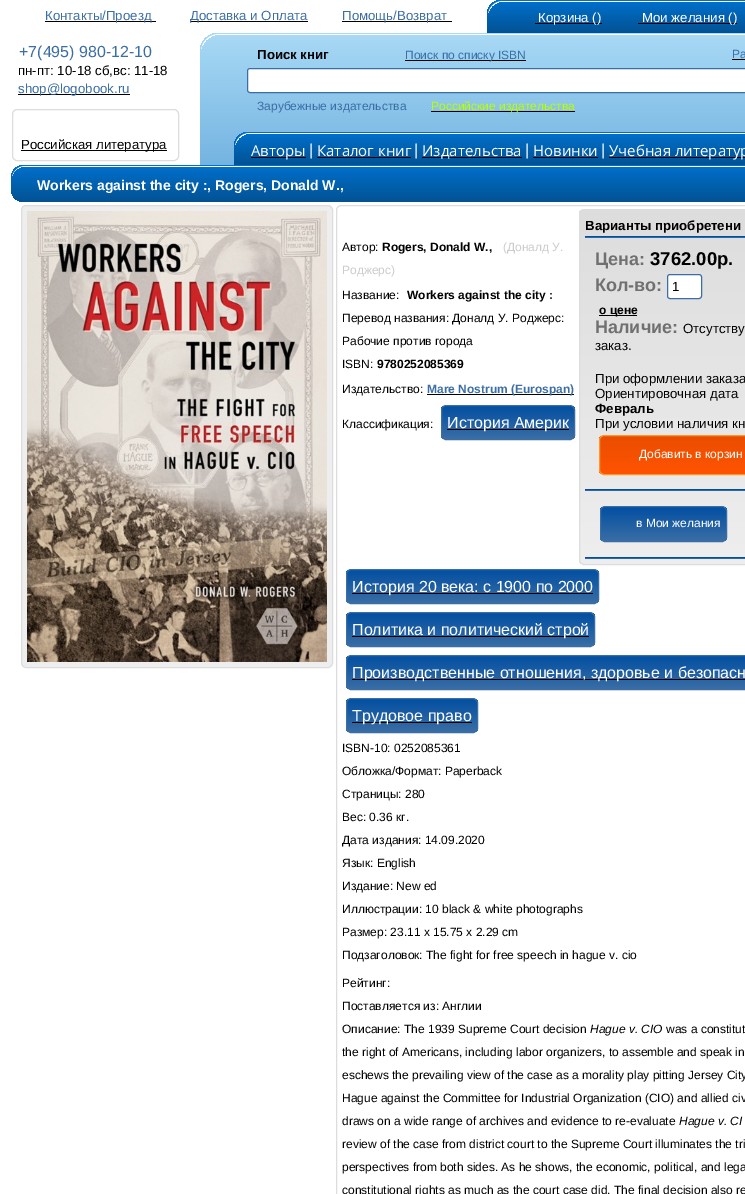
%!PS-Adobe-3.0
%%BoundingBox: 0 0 745 1194
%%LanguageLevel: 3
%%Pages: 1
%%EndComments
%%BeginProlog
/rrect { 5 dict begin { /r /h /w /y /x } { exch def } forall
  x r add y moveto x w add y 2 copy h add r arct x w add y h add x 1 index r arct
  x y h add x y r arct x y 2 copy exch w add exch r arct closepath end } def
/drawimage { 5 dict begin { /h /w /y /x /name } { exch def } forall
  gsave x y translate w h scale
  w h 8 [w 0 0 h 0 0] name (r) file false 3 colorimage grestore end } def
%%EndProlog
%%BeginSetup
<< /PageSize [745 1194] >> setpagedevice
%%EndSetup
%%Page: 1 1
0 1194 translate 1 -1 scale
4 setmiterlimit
1 setgray
0 0 745 1194 rectfill
0 setgray
45 21 111 1 rectfill
190 21 118 1 rectfill
342 21 110 1 rectfill
gsave newpath 502 0 moveto 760 0 lineto 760 33 lineto 487 33 lineto 487 15 lineto 487 6.5 493.5 0 502 0 curveto closepath clip newpath
<< /ShadingType 2 /ColorSpace /DeviceRGB /Coords [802 33 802 0] /Extend [true true] /Function << /FunctionType 2 /Domain [0 1] /C0 [0.012 0.322 0.576] /C1 [0 0.435 0.792] /N 1 >> >> shfill grestore
1 setgray
newpath 503 1 moveto 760 1 lineto 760 33 lineto 488 33 lineto 488 16 lineto 488 7.5 494.5 1 503 1 curveto closepath fill
gsave newpath 505 2 moveto 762 2 lineto 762 33 lineto 488 33 lineto 488 19 lineto 488 9.5 495.5 2 505 2 curveto closepath clip newpath
<< /ShadingType 2 /ColorSpace /DeviceRGB /Coords [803 33 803 2] /Extend [true true] /Function << /FunctionType 2 /Domain [0 1] /C0 [0.012 0.322 0.576] /C1 [0 0.435 0.792] /N 1 >> >> shfill grestore
0 setgray
535 23 67 1 rectfill
638 23 99 1 rectfill
18 94 112 1 rectfill
0.867 setgray
12.5 109.5 166 51 4.5 rrect stroke
0 setgray
21 150 146 1 rectfill
gsave newpath 218 33 moveto 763 33 lineto 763 165 lineto 200 165 lineto 200 51 lineto 200 41 208 33 218 33 curveto closepath clip newpath
<< /ShadingType 2 /ColorSpace /DeviceRGB /Coords [659 165 659 33] /Extend [true true] /Function << /FunctionType 2 /Domain [0 1] /C0 [0.455 0.706 0.882] /C1 [0.659 0.851 0.961] /N 1 >> >> shfill grestore
1 setgray
newpath 219 34 moveto 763 34 lineto 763 165 lineto 201 165 lineto 201 52 lineto 201 42 209 34 219 34 curveto closepath fill
gsave newpath 221 35 moveto 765 35 lineto 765 165 lineto 201 165 lineto 201 55 lineto 201 44 210 35 221 35 curveto closepath clip newpath
<< /ShadingType 2 /ColorSpace /DeviceRGB /Coords [659 165 659 35] /Extend [true true] /Function << /FunctionType 2 /Domain [0 1] /C0 [0.455 0.706 0.882] /C1 [0.659 0.851 0.961] /N 1 >> >> shfill grestore
0 setgray
405 60 121 1 rectfill
732 59 13 1 rectfill
1 setgray
247.5 68.5 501 24 2.5 rrect gsave fill grestore
0.227 0.431 0.647 setrgbcolor
stroke
0 setgray
431 111 144 1 rectfill
gsave newpath 249 132 moveto 745 132 lineto 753.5 132 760 138.5 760 147 curveto 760 165 lineto 234 165 lineto 234 147 lineto 234 138.5 240.5 132 249 132 curveto closepath clip newpath
<< /ShadingType 2 /ColorSpace /DeviceRGB /Coords [579 165 579 132] /Extend [true true] /Function << /FunctionType 2 /Domain [0 1] /C0 [0.012 0.322 0.576] /C1 [0 0.435 0.792] /N 1 >> >> shfill grestore
1 setgray
newpath 250 133 moveto 745 133 lineto 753.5 133 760 139.5 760 148 curveto 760 165 lineto 235 165 lineto 235 148 lineto 235 139.5 241.5 133 250 133 curveto closepath fill
gsave newpath 252 134 moveto 745 134 lineto 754.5 134 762 141.5 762 151 curveto 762 165 lineto 235 165 lineto 235 151 lineto 235 141.5 242.5 134 252 134 curveto closepath clip newpath
<< /ShadingType 2 /ColorSpace /DeviceRGB /Coords [579 165 579 134] /Extend [true true] /Function << /FunctionType 2 /Domain [0 1] /C0 [0.012 0.322 0.576] /C1 [0 0.435 0.792] /N 1 >> >> shfill grestore
0 setgray
251 157 55 1 rectfill
317 157 94 1 rectfill
422 157 100 1 rectfill
533 157 65 1 rectfill
609 157 136 1 rectfill
gsave newpath 24 165 moveto 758 165 lineto 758 202 lineto 24 202 lineto 17 202 11 196 11 189 curveto 11 178 lineto 11 171 17 165 24 165 curveto closepath clip newpath
<< /ShadingType 2 /ColorSpace /DeviceRGB /Coords [475 202 475 165] /Extend [true true] /Function << /FunctionType 2 /Domain [0 1] /C0 [0.012 0.322 0.576] /C1 [0 0.435 0.792] /N 1 >> >> shfill grestore
1 setgray
newpath 25 166 moveto 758 166 lineto 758 202 lineto 25 202 lineto 18 202 12 196 12 189 curveto 12 179 lineto 12 172 18 166 25 166 curveto closepath fill
gsave newpath 27 167 moveto 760 167 lineto 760 202 lineto 25 202 lineto 18 202 12 196 12 189 curveto 12 182 lineto 12 173.5 18.5 167 27 167 curveto closepath clip newpath
<< /ShadingType 2 /ColorSpace /DeviceRGB /Coords [475 202 475 167] /Extend [true true] /Function << /FunctionType 2 /Domain [0 1] /C0 [0.012 0.322 0.576] /C1 [0 0.435 0.792] /N 1 >> >> shfill grestore
0.933 setgray
21.5 205.5 311 462 4.5 rrect gsave fill grestore
0.867 setgray
stroke
(images/1.raw) 27 211 300 451 drawimage
336.5 205.5 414 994 4.5 rrect stroke
gsave
579 209 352 356 5 rrect clip newpath
gsave newpath 579 210 moveto 745 210 lineto 745 564 lineto 579 564 lineto closepath clip newpath
<< /ShadingType 2 /ColorSpace /DeviceRGB /Coords [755 564 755 210] /Extend [true true] /Function << /FunctionType 2 /Domain [0 1] /C0 [0.933 0.933 0.933] /C1 [0.867 0.867 0.867] /N 1 >> >> shfill grestore
grestore
579.5 209.5 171 355 4.5 rrect stroke
gsave newpath 585 236 moveto 745 236 lineto 745 238 lineto 585 238 lineto closepath clip newpath
<< /ShadingType 2 /ColorSpace /DeviceRGB /Coords [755 238 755 236] /Extend [true true] /Function << /FunctionType 2 /Domain [0 1] /C0 [0.227 0.431 0.647] /C1 [0.008 0.31 0.631] /N 1 >> >> shfill grestore
1 setgray
667.5 274.5 34 24 2.5 rrect gsave fill grestore
0.227 0.431 0.647 setrgbcolor
stroke
0 setgray
599 315 38 1 rectfill
gsave
599 435 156 40 5 rrect clip newpath
gsave newpath 599 436 moveto 745 436 lineto 745 474 lineto 599 474 lineto closepath clip newpath
<< /ShadingType 2 /ColorSpace /DeviceRGB /Coords [677 474 677 436] /Extend [true true] /Function << /FunctionType 2 /Domain [0 1] /C0 [1 0.329 0] /C1 [0.918 0.302 0] /N 1 >> >> shfill grestore
grestore
0.992 0.592 0.161 setrgbcolor
599.5 435.5 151 39 4.5 rrect stroke
gsave newpath 585 489 moveto 745 489 lineto 745 491 lineto 585 491 lineto closepath clip newpath
<< /ShadingType 2 /ColorSpace /DeviceRGB /Coords [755 491 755 489] /Extend [true true] /Function << /FunctionType 2 /Domain [0 1] /C0 [0.227 0.431 0.647] /C1 [0.008 0.31 0.631] /N 1 >> >> shfill grestore
gsave
600 506 127 36 5 rrect clip newpath
gsave newpath 600 507 moveto 727 507 lineto 727 541 lineto 600 541 lineto closepath clip newpath
<< /ShadingType 2 /ColorSpace /DeviceRGB /Coords [664 541 664 507] /Extend [true true] /Function << /FunctionType 2 /Domain [0 1] /C0 [0.227 0.431 0.647] /C1 [0.008 0.31 0.631] /N 1 >> >> shfill grestore
grestore
0.227 0.431 0.647 setrgbcolor
600.5 506.5 126 35 4.5 rrect stroke
gsave newpath 585 557 moveto 745 557 lineto 745 559 lineto 585 559 lineto closepath clip newpath
<< /ShadingType 2 /ColorSpace /DeviceRGB /Coords [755 559 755 557] /Extend [true true] /Function << /FunctionType 2 /Domain [0 1] /C0 [0.227 0.431 0.647] /C1 [0.008 0.31 0.631] /N 1 >> >> shfill grestore
0 setgray
427 394 147 1 rectfill
gsave
441 405 134 35 5 rrect clip newpath
gsave newpath 441 406 moveto 575 406 lineto 575 439 lineto 441 439 lineto closepath clip newpath
<< /ShadingType 2 /ColorSpace /DeviceRGB /Coords [508 439 508 406] /Extend [true true] /Function << /FunctionType 2 /Domain [0 1] /C0 [0.227 0.431 0.647] /C1 [0.008 0.31 0.631] /N 1 >> >> shfill grestore
grestore
0.227 0.431 0.647 setrgbcolor
441.5 405.5 133 34 4.5 rrect stroke
0 setgray
447 429 122 1 rectfill
gsave
346 569 253 35 5 rrect clip newpath
gsave newpath 346 570 moveto 599 570 lineto 599 603 lineto 346 603 lineto closepath clip newpath
<< /ShadingType 2 /ColorSpace /DeviceRGB /Coords [473 603 473 570] /Extend [true true] /Function << /FunctionType 2 /Domain [0 1] /C0 [0.227 0.431 0.647] /C1 [0.008 0.31 0.631] /N 1 >> >> shfill grestore
grestore
0.227 0.431 0.647 setrgbcolor
346.5 569.5 252 34 4.5 rrect stroke
0 setgray
352 593 241 1 rectfill
gsave
346 612 249 35 5 rrect clip newpath
gsave newpath 346 613 moveto 595 613 lineto 595 646 lineto 346 646 lineto closepath clip newpath
<< /ShadingType 2 /ColorSpace /DeviceRGB /Coords [471 646 471 613] /Extend [true true] /Function << /FunctionType 2 /Domain [0 1] /C0 [0.227 0.431 0.647] /C1 [0.008 0.31 0.631] /N 1 >> >> shfill grestore
grestore
0.227 0.431 0.647 setrgbcolor
346.5 612.5 248 34 4.5 rrect stroke
0 setgray
352 636 237 1 rectfill
gsave
346 655 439 35 5 rrect clip newpath
gsave newpath 346 656 moveto 745 656 lineto 745 689 lineto 346 689 lineto closepath clip newpath
<< /ShadingType 2 /ColorSpace /DeviceRGB /Coords [566 689 566 656] /Extend [true true] /Function << /FunctionType 2 /Domain [0 1] /C0 [0.227 0.431 0.647] /C1 [0.008 0.31 0.631] /N 1 >> >> shfill grestore
grestore
0.227 0.431 0.647 setrgbcolor
346.5 655.5 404 34 4.5 rrect stroke
0 setgray
352 679 393 1 rectfill
gsave
346 698 132 35 5 rrect clip newpath
gsave newpath 346 699 moveto 478 699 lineto 478 732 lineto 346 732 lineto closepath clip newpath
<< /ShadingType 2 /ColorSpace /DeviceRGB /Coords [412 732 412 699] /Extend [true true] /Function << /FunctionType 2 /Domain [0 1] /C0 [0.227 0.431 0.647] /C1 [0.008 0.31 0.631] /N 1 >> >> shfill grestore
grestore
0.227 0.431 0.647 setrgbcolor
346.5 698.5 131 34 4.5 rrect stroke
0 setgray
352 722 120 1 rectfill
/LiberationSans-Regular [13.25 0 0 -13.25 0 0] selectfont
0.227 0.431 0.647 setrgbcolor
45 20 moveto (Контакты/Проезд) show
190 20 moveto (Доставка и Оплата) show
342 20 moveto (Помощь/Возврат) show
1 setgray
538 22 moveto (Корзина \(\)) show
642 22 moveto (Мои желания \(\)) show
/LiberationSans-Regular [16 0 0 -16 0 0] selectfont
0.227 0.431 0.647 setrgbcolor
19 57 moveto (+7\(495\) 980-12-10) show
/LiberationSans-Regular [13.25 0 0 -13.25 0 0] selectfont
0 setgray
18 75 moveto (пн-пт: 10-18 сб,вс: 11-18) show
0.227 0.431 0.647 setrgbcolor
18 93 moveto (shop@logobook.ru) show
0 setgray
21 149 moveto (Российская литература) show
/LiberationSans-Bold [13.25 0 0 -13.25 0 0] selectfont
257 59 moveto (Поиск книг) show
/LiberationSans-Regular [12 0 0 -12 0 0] selectfont
0.227 0.431 0.647 setrgbcolor
405 59 moveto (Поиск по списку ISBN) show
732 58 moveto (Ра) show
257 110 moveto (Зарубежные издательства) show
0.729 1 0 setrgbcolor
431 110 moveto (Российские издательства) show
/OpenSans-Regular [15 0 0 -15 0 0] selectfont
1 setgray
251 156 moveto (Авторы) show
/LiberationSans-Regular [16 0 0 -16 0 0] selectfont
309 155 moveto (|) show
/OpenSans-Regular [15 0 0 -15 0 0] selectfont
317 156 moveto (Каталог книг) show
/LiberationSans-Regular [16 0 0 -16 0 0] selectfont
414 155 moveto (|) show
/OpenSans-Regular [15 0 0 -15 0 0] selectfont
422 156 moveto (Издательства) show
/LiberationSans-Regular [16 0 0 -16 0 0] selectfont
525 155 moveto (|) show
/OpenSans-Regular [15 0 0 -15 0 0] selectfont
533 156 moveto (Новинки) show
/LiberationSans-Regular [16 0 0 -16 0 0] selectfont
601 155 moveto (|) show
/OpenSans-Regular [15 0 0 -15 0 0] selectfont
609 156 moveto (Учебная литератур) show
/LiberationSans-Bold [14 0 0 -14 0 0] selectfont
37 190 moveto (Workers against the city :, Rogers, Donald W.,) show
/LiberationSans-Regular [12 0 0 -12 0 0] selectfont
0 setgray
342 251 moveto (Автор:) show
/LiberationSans-Bold [12 0 0 -12 0 0] selectfont
382 251 moveto (Rogers, Donald W.,) show
/LiberationSans-Regular [12 0 0 -12 0 0] selectfont
0.8 setgray
503 251 moveto (\(Доналд У.) show
/LiberationSans-Bold [13.25 0 0 -13.25 0 0] selectfont
0 setgray
585 230 moveto (Варианты приобретени) show
/LiberationSans-Bold [18 0 0 -18 0 0] selectfont
0.439 setgray
595 265 moveto (Цена:) show
/LiberationSans-Bold [18.5 0 0 -18.5 0 0] selectfont
0 setgray
650 265 moveto (3762.00р.) show
/LiberationSans-Bold [18 0 0 -18 0 0] selectfont
0.439 setgray
595 291 moveto (Кол-во:) show
/LiberationSans-Regular [13.25 0 0 -13.25 0 0] selectfont
0 setgray
672 291 moveto (1) show
/LiberationSans-Bold [12 0 0 -12 0 0] selectfont
599 314 moveto (о цене) show
/LiberationSans-Bold [18 0 0 -18 0 0] selectfont
0.439 setgray
595 333 moveto (Наличие:) show
/LiberationSans-Regular [13.25 0 0 -13.25 0 0] selectfont
0 setgray
683 333 moveto (Отсутству) show
595 350 moveto (заказ.) show
595 383 moveto (При оформлении заказа) show
595 398 moveto (Ориентировочная дата) show
/LiberationSans-Bold [13.25 0 0 -13.25 0 0] selectfont
595 413 moveto (Февраль) show
/LiberationSans-Regular [13.25 0 0 -13.25 0 0] selectfont
595 428 moveto (При условии наличия кн) show
/LiberationSans-Regular [12 0 0 -12 0 0] selectfont
1 setgray
639 458 moveto (Добавить в корзин) show
636 527 moveto (в Мои желания) show
0.8 setgray
342 274 moveto (Роджерс\)) show
0 setgray
342 299 moveto (Название:) show
/LiberationSans-Bold [12 0 0 -12 0 0] selectfont
407 299 moveto (Workers against the city :) show
/LiberationSans-Regular [12 0 0 -12 0 0] selectfont
342 322 moveto (Перевод названия: Доналд У. Роджерс:) show
342 345 moveto (Рабочие против города) show
342 368 moveto (ISBN:) show
/LiberationSans-Bold [12 0 0 -12 0 0] selectfont
377 368 moveto (9780252085369) show
/LiberationSans-Regular [12 0 0 -12 0 0] selectfont
342 393 moveto (Издательство:) show
/LiberationSans-Bold [12 0 0 -12 0 0] selectfont
0.227 0.431 0.647 setrgbcolor
427 393 moveto (Mare Nostrum \(Eurospan\)) show
/LiberationSans-Regular [12 0 0 -12 0 0] selectfont
0 setgray
342 428 moveto (Классификация:) show
/LiberationSans-Regular [16 0 0 -16 0 0] selectfont
1 setgray
447 428 moveto (История Америк) show
352 592 moveto (История 20 века: с 1900 по 2000) show
352 635 moveto (Политика и политический строй) show
352 678 moveto (Производственные отношения, здоровье и безопасн) show
352 721 moveto (Трудовое право) show
/LiberationSans-Regular [12 0 0 -12 0 0] selectfont
0 setgray
342 752 moveto (ISBN-10: 0252085361) show
342 775 moveto (Обложка/Формат: Paperback) show
342 798 moveto (Страницы: 280) show
342 821 moveto (Вес: 0.36 кг.) show
342 844 moveto (Дата издания: 14.09.2020) show
342 867 moveto (Язык: English) show
342 890 moveto (Издание: New ed) show
342 913 moveto (Иллюстрации: 10 black & white photographs) show
342 936 moveto (Размер: 23.11 x 15.75 x 2.29 cm) show
342 959 moveto (Подзаголовок: The fight for free speech in hague v. cio) show
342 987 moveto (Рейтинг:) show
342 1010 moveto (Поставляется из: Англии) show
342 1033 moveto (Описание: The 1939 Supreme Court decision) show
/LiberationSans-Italic [12 0 0 -12 0 0] selectfont
590 1033 moveto (Hague v. CIO) show
/LiberationSans-Regular [12 0 0 -12 0 0] selectfont
666 1033 moveto (was a constitut) show
342 1056 moveto (the right of Americans, including labor organizers, to assemble and speak in) show
342 1079 moveto (eschews the prevailing view of the case as a morality play pitting Jersey City) show
342 1102 moveto (Hague against the Committee for Industrial Organization \(CIO\) and allied civ) show
342 1125 moveto (draws on a wide range of archives and evidence to re-evaluate) show
/LiberationSans-Italic [12 0 0 -12 0 0] selectfont
679 1125 moveto (Hague v. CI) show
/LiberationSans-Regular [12 0 0 -12 0 0] selectfont
342 1148 moveto (review of the case from district court to the Supreme Court illuminates the tri) show
342 1171 moveto (perspectives from both sides. As he shows, the economic, political, and lega) show
342 1194 moveto (constitutional rights as much as the court case did. The final decision also re) show
showpage
%%EOF
